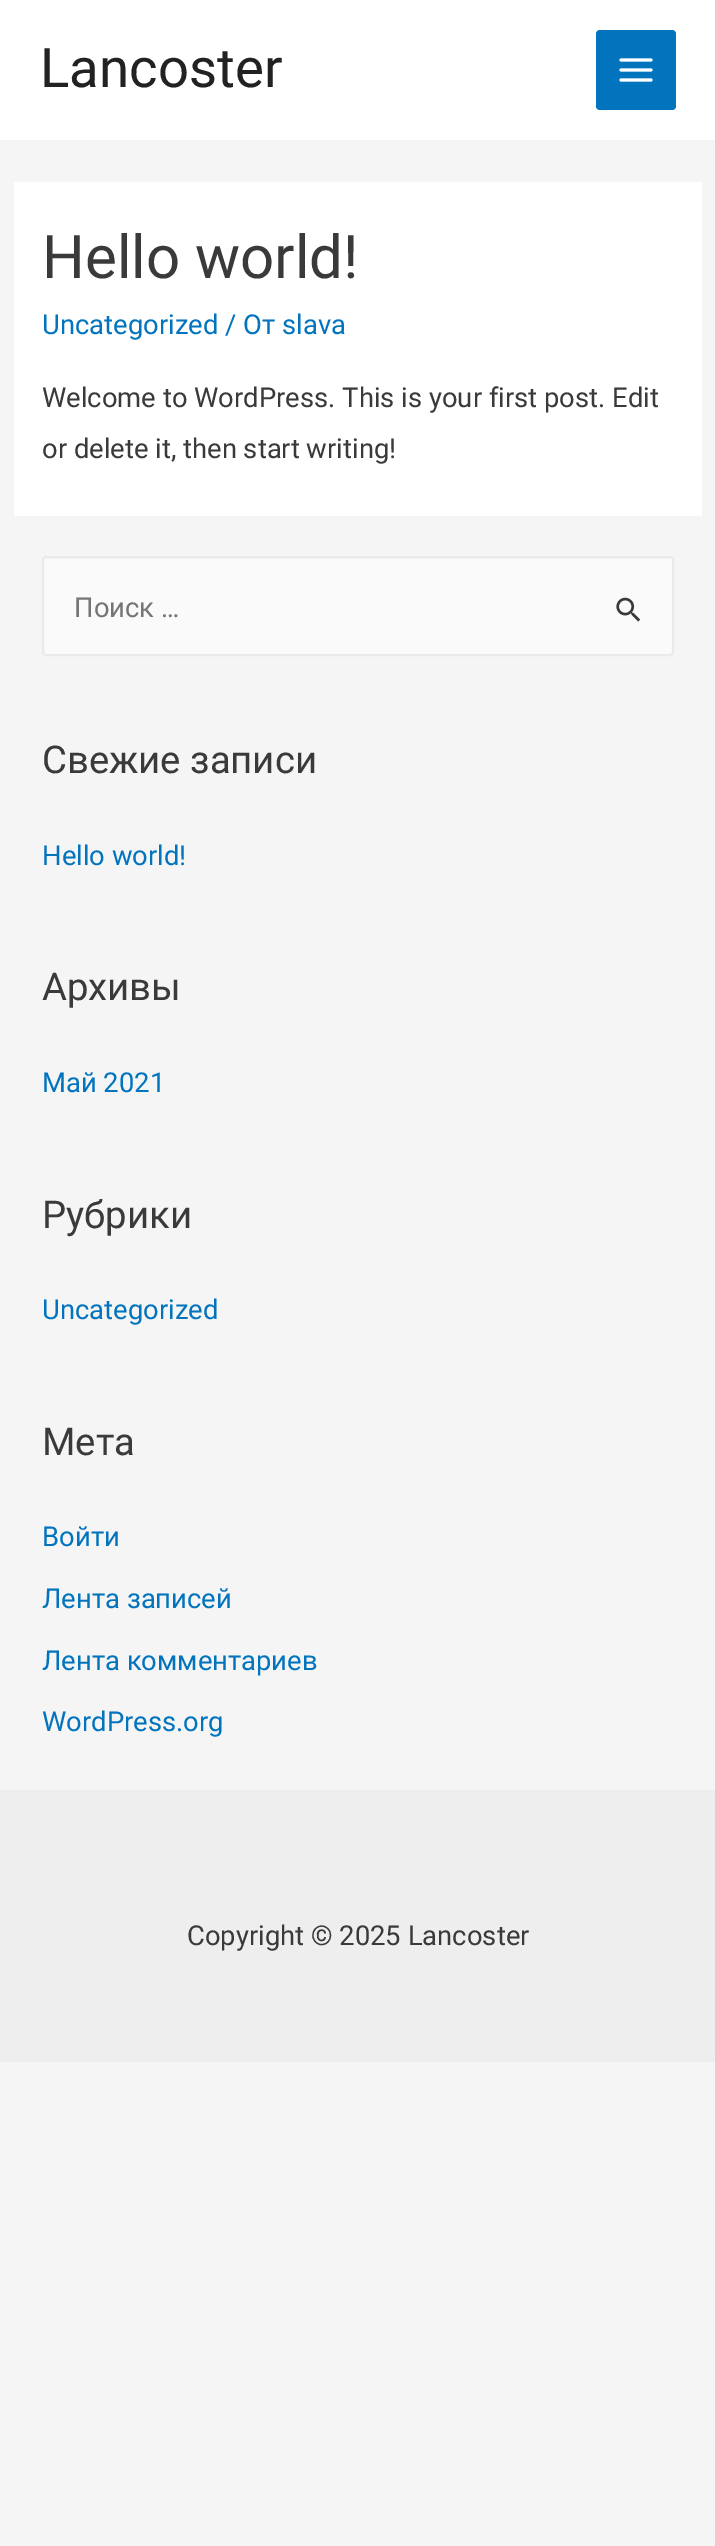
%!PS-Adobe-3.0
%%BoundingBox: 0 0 715 2546
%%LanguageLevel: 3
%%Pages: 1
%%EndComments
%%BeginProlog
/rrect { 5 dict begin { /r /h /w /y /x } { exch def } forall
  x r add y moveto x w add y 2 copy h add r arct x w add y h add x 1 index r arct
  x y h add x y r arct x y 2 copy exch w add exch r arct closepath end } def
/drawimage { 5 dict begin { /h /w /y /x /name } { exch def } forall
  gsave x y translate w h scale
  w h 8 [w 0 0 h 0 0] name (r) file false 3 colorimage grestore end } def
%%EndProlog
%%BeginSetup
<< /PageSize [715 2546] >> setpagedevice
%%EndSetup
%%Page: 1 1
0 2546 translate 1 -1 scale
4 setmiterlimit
0.961 setgray
0 0 715 2546 rectfill
1 setgray
0 0 715 140 rectfill
0.008 0.455 0.745 setrgbcolor
596 30 80 80 4 rrect fill
(images/1.raw) 619 58 34 24 drawimage
1 setgray
14 182 688 334 rectfill
0.98 setgray
43 557 630 98 3 rrect gsave fill grestore
0.918 setgray
2 setlinewidth
stroke
(images/2.raw) 616 597 24 25 drawimage
0.933 setgray
0 1790 715 272 rectfill
/Roboto-Regular [54.5 0 0 -54.5 0 0] selectfont
0.133 setgray
40 87 moveto (Lancoster) show
/Roboto-Regular [60 0 0 -60 0 0] selectfont
0.227 setgray
42 278 moveto (Hello world!) show
/Roboto-Regular [27.4 0 0 -27.4 0 0] selectfont
0.008 0.455 0.745 setrgbcolor
42 334 moveto (Uncategorized / От slava) show
0.227 setgray
42 407 moveto (Welcome to WordPress. This is your first post. Edit) show
42 458 moveto (or delete it, then start writing!) show
0.459 setgray
74 617 moveto (Поиск …) show
/Roboto-Regular [38.25 0 0 -38.25 0 0] selectfont
0.227 setgray
42 773 moveto (Свежие записи) show
/Roboto-Regular [27.4 0 0 -27.4 0 0] selectfont
0.008 0.455 0.745 setrgbcolor
42 865 moveto (Hello world!) show
/Roboto-Regular [38.25 0 0 -38.25 0 0] selectfont
0.227 setgray
42 1000 moveto (Архивы) show
/Roboto-Regular [27.4 0 0 -27.4 0 0] selectfont
0.008 0.455 0.745 setrgbcolor
42 1092 moveto (Май 2021) show
/Roboto-Regular [38.25 0 0 -38.25 0 0] selectfont
0.227 setgray
42 1228 moveto (Рубрики) show
/Roboto-Regular [27.4 0 0 -27.4 0 0] selectfont
0.008 0.455 0.745 setrgbcolor
42 1319 moveto (Uncategorized) show
/Roboto-Regular [38.25 0 0 -38.25 0 0] selectfont
0.227 setgray
42 1455 moveto (Мета) show
/Roboto-Regular [27.4 0 0 -27.4 0 0] selectfont
0.008 0.455 0.745 setrgbcolor
42 1546 moveto (Войти) show
42 1608 moveto (Лента записей) show
42 1670 moveto (Лента комментариев) show
42 1731 moveto (WordPress.org) show
0.227 setgray
187 1945 moveto (Copyright © 2025 Lancoster) show
showpage
%%EOF
